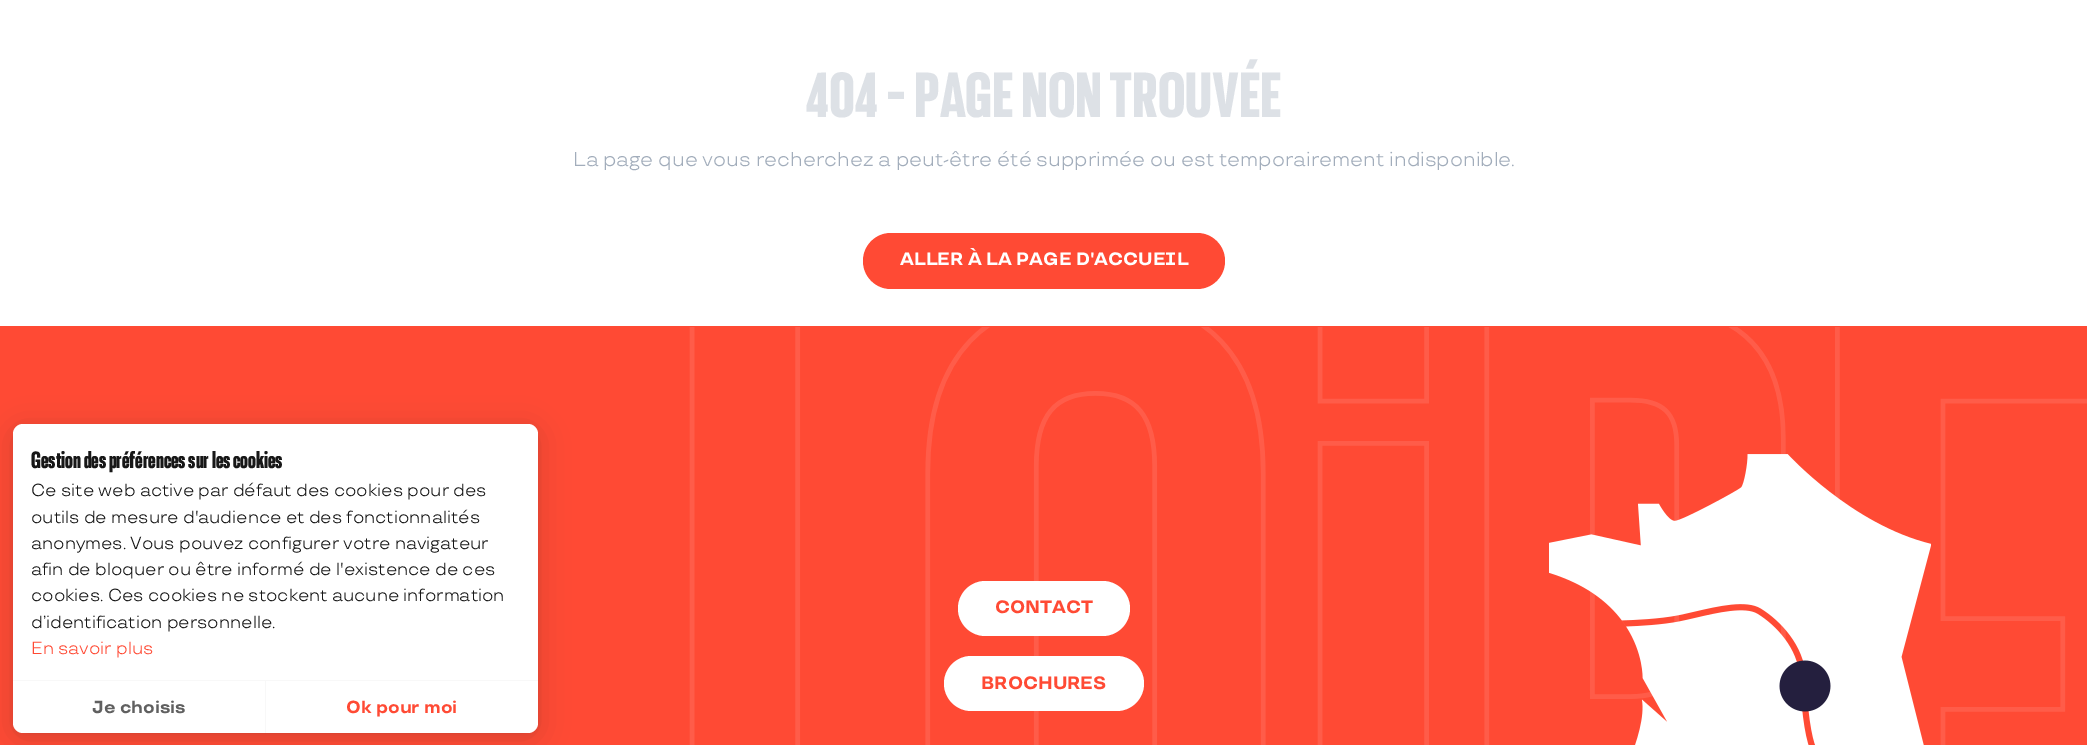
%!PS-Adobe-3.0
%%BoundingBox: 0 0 2087 745
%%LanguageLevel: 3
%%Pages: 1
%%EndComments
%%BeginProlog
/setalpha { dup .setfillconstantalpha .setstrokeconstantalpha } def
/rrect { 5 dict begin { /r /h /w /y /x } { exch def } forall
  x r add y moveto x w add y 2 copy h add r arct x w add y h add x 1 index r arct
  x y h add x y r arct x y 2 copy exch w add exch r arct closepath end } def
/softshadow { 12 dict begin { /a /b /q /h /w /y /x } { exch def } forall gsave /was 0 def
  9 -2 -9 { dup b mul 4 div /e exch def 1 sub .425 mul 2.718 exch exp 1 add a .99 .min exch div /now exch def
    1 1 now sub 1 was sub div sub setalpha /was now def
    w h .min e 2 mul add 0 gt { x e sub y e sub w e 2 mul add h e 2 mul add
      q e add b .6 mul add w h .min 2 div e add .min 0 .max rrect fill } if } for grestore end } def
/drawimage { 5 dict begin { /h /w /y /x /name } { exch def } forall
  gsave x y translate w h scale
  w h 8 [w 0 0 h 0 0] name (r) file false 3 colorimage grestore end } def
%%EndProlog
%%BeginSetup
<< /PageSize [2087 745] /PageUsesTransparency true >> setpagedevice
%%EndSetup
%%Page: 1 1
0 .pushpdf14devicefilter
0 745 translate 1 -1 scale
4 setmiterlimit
1 setgray
0 0 2087 745 rectfill
1 0.29 0.204 setrgbcolor
0 326 2087 419 rectfill
0.09 setgray
13 426 525 309 10 4 0.05 softshadow
13 429 525 309 10 15 0.15 softshadow
1 setgray
13 424 525 309 10 rrect fill
0.973 setgray
13 680 525 1 rectfill
265 681 1 52 rectfill
1 0.29 0.204 setrgbcolor
863 233 362 56 28 rrect fill
(images/1.raw) 689 327 1398 418 drawimage
1 setgray
958 581 172 55 27.5 rrect fill
944 656 200 55 27.5 rrect fill
(images/2.raw) 1549 454 382 291 drawimage
/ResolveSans-Black [25 0 0 -25 0 0] selectfont
0.09 setgray
31 468 moveto (Gestion des préférences sur les cookies) show
/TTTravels-Regular [17.5 0 0 -17.5 0 0] selectfont
31 496 moveto (Ce site web active par défaut des cookies pour des) show
31 523 moveto (outils de mesure d'audience et des fonctionnalités) show
31 549 moveto (anonymes. Vous pouvez configurer votre navigateur) show
31 575 moveto (afin de bloquer ou être informé de l'existence de ces) show
31 601 moveto (cookies. Ces cookies ne stockent aucune information) show
31 628 moveto (d’identification personnelle.) show
1 0.29 0.204 setrgbcolor
31 654 moveto (En savoir plus) show
/TTTravels-Bold [17.5 0 0 -17.5 0 0] selectfont
0.376 setgray
92 713 moveto (Je choisis) show
1 0.29 0.204 setrgbcolor
346 713 moveto (Ok pour moi) show
/ResolveSans-Black [67.5 0 0 -67.5 0 0] selectfont
0.867 0.882 0.902 setrgbcolor
806 117 moveto (404 - PAGE NON TROUVÉE) show
/TTTravels-Regular [20 0 0 -20 0 0] selectfont
0.635 0.678 0.733 setrgbcolor
573 166 moveto (La page que vous recherchez a peut-être été supprimée ou est temporairement indisponible.) show
/TTTravels-Bold [18 0 0 -18 0 0] selectfont
1 setgray
900 265 moveto (ALLER À LA PAGE D'ACCUEIL) show
1 0.29 0.204 setrgbcolor
995 613 moveto (CONTACT) show
981 689 moveto (BROCHURES) show
.poppdf14devicefilter showpage
%%EOF
